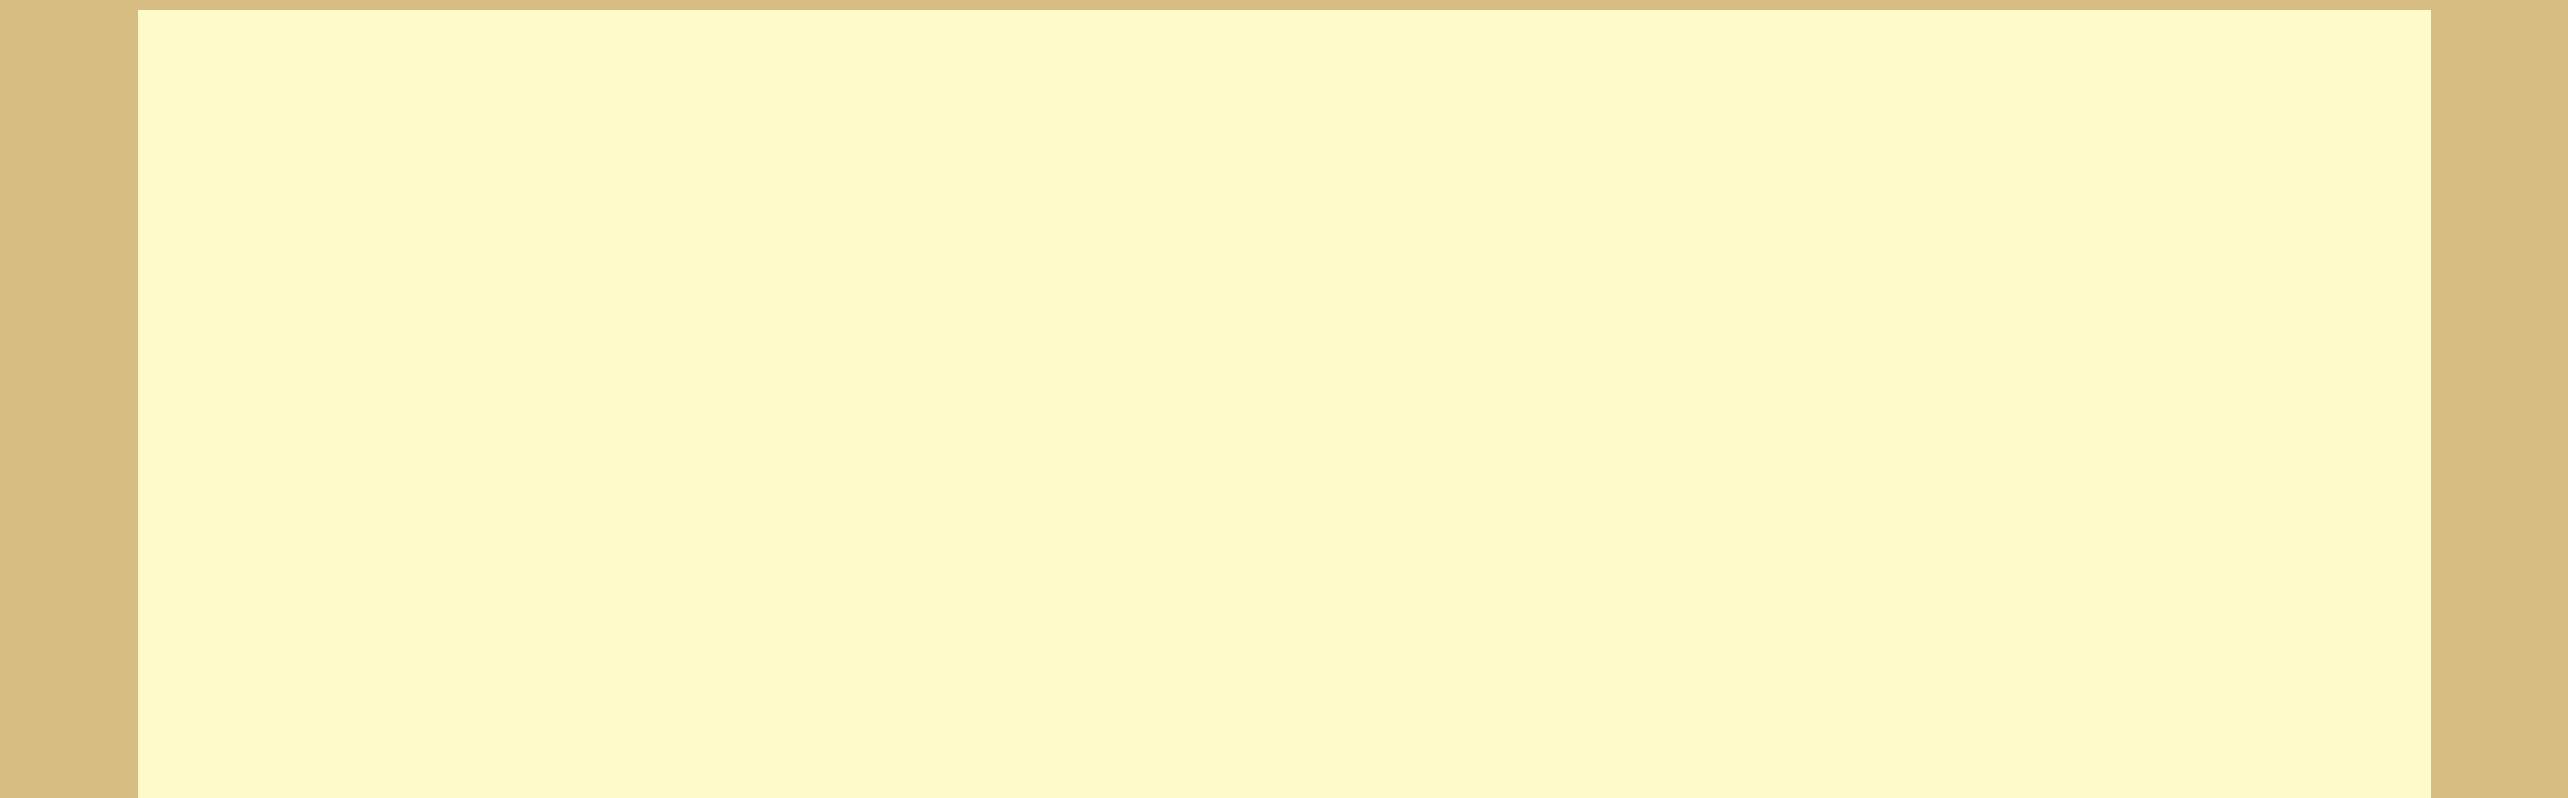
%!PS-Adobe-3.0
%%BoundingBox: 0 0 2568 798
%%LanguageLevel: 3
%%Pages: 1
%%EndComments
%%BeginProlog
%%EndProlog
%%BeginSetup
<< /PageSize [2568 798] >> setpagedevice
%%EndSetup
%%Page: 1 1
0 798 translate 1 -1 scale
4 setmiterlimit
0.843 0.741 0.51 setrgbcolor
0 0 2568 798 rectfill
1 0.98 0.788 setrgbcolor
138 10 2293 788 rectfill
showpage
%%EOF
